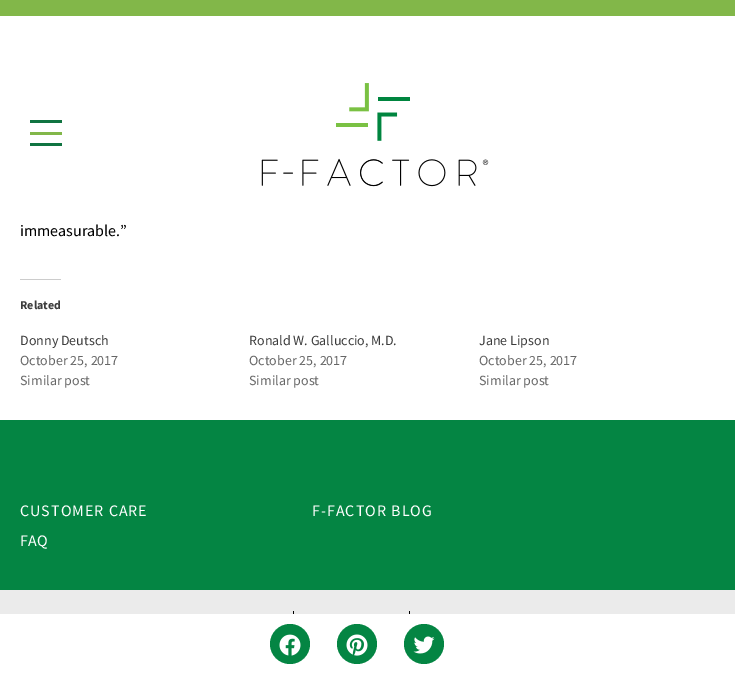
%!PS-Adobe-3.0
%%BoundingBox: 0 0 735 674
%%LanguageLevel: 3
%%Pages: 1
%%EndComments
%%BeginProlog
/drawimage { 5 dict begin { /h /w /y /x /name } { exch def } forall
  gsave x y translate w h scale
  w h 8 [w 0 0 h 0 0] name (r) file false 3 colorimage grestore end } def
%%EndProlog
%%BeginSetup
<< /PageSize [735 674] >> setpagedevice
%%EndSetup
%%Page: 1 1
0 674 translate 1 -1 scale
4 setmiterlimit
1 setgray
0 0 735 674 rectfill
0.51 0.718 0.286 setrgbcolor
0 0 735 16 rectfill
30 132 32 3 rectfill
0.063 0.455 0.255 setrgbcolor
30 120 32 3 rectfill
30 143 32 3 rectfill
(images/1.raw) 261 83 228 104 drawimage
0.8 setgray
20 279 41 1 rectfill
0.016 0.522 0.263 setrgbcolor
0 420 735 170 rectfill
0.922 setgray
0 590 735 24 rectfill
0 setgray
293 611 1 3 rectfill
409 611 1 3 rectfill
0.016 0.522 0.263 setrgbcolor
newpath 290 644 20 0 360 arc closepath fill
(images/2.raw) 279 634 22 22 drawimage
newpath 357 644 20 0 360 arc closepath fill
(images/3.raw) 346 634 22 22 drawimage
newpath 424 644 20 0 360 arc closepath fill
(images/4.raw) 413 636 22 18 drawimage
/SourceSansPro-Regular [16 0 0 -16 0 0] selectfont
0 setgray
20 236 moveto (immeasurable.”) show
/SourceSansPro-Bold [12 0 0 -12 0 0] selectfont
0.235 setgray
20 309 moveto (Related) show
/SourceSansPro-Regular [14 0 0 -14 0 0] selectfont
20 345 moveto (Donny Deutsch) show
0.4 setgray
20 365 moveto (October 25, 2017) show
20 385 moveto (Similar post) show
0.235 setgray
249 345 moveto (Ronald W. Galluccio, M.D.) show
0.4 setgray
249 365 moveto (October 25, 2017) show
249 385 moveto (Similar post) show
0.235 setgray
479 345 moveto (Jane Lipson) show
0.4 setgray
479 365 moveto (October 25, 2017) show
479 385 moveto (Similar post) show
/SourceSansPro-Regular [16 0 0 -16 0 0] selectfont
1 setgray
20 516 moveto 1 0 (CUSTOMER CARE) ashow
20 546 moveto (FAQ) show
312 516 moveto 1 0 (F-FACTOR BLOG) ashow
showpage
%%EOF
